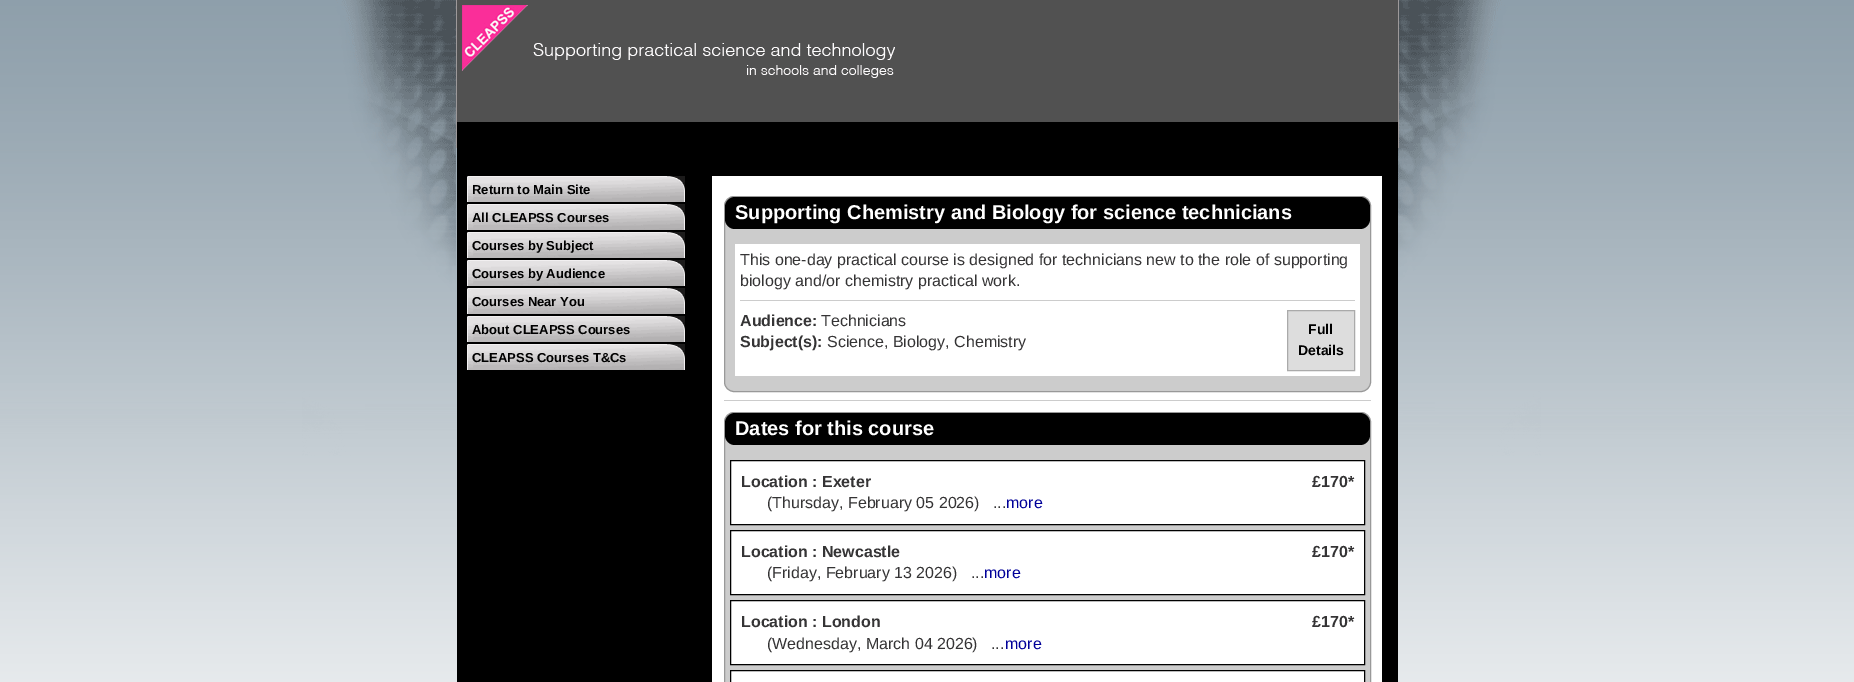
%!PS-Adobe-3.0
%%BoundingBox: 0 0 1854 682
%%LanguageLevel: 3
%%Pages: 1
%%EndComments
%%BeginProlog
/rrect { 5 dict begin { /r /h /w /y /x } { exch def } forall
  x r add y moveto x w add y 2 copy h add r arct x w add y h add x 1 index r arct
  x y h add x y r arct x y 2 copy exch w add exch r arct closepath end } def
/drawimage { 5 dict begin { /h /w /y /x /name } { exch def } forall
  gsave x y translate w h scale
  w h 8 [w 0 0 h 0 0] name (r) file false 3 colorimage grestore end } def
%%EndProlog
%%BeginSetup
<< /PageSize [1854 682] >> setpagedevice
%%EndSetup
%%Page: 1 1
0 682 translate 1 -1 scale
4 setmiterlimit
1 setgray
0 0 1854 682 rectfill
(images/1.raw) 0 0 1854 682 drawimage
0 setgray
457 122 941 560 rectfill
0.616 0.6 0.604 setrgbcolor
1398 0 1 148 rectfill
456 0 1 148 rectfill
0.318 setgray
457 0 941 122 rectfill
(images/2.raw) 462 5 433 73 drawimage
(images/3.raw) 467 176 218 26 drawimage
(images/3.raw) 467 204 218 26 drawimage
(images/3.raw) 467 232 218 26 drawimage
(images/3.raw) 467 260 218 26 drawimage
(images/3.raw) 467 288 218 26 drawimage
(images/3.raw) 467 316 218 26 drawimage
(images/3.raw) 467 344 218 26 drawimage
1 setgray
712 176 670 506 rectfill
0.8 setgray
724.5 196.5 646 195 9.5 rrect gsave fill grestore
0.6 setgray
stroke
0 setgray
725 197 645 32 10 rrect fill
1 setgray
735 244 625 132 rectfill
0.8 setgray
740 300 615 1 rectfill
0.867 setgray
newpath 1287.5 310.5 moveto 1354.5 310.5 lineto 1354.5 370.5 lineto 1287.5 370.5 lineto closepath gsave fill grestore
0.667 setgray
stroke
0.8 setgray
724 400 647 1 rectfill
724.5 412.5 646 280 9.5 rrect gsave fill grestore
0.6 setgray
stroke
0 setgray
725 413 645 32 10 rrect fill
1 setgray
newpath 730.5 460.5 moveto 1364.5 460.5 lineto 1364.5 524.5 lineto 730.5 524.5 lineto closepath gsave fill grestore
0 setgray
stroke
1 setgray
newpath 730.5 530.5 moveto 1364.5 530.5 lineto 1364.5 594.5 lineto 730.5 594.5 lineto closepath gsave fill grestore
0 setgray
stroke
1 setgray
newpath 730.5 600.5 moveto 1364.5 600.5 lineto 1364.5 664.5 lineto 730.5 664.5 lineto closepath gsave fill grestore
0 setgray
stroke
1 setgray
newpath 730.5 670.5 moveto 1364.5 670.5 lineto 1364.5 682.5 lineto 730.5 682.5 lineto closepath gsave fill grestore
0 setgray
stroke
/LiberationSans-Bold [13 0 0 -13 0 0] selectfont
472 194 moveto (Return to Main Site) show
472 222 moveto (All CLEAPSS Courses) show
472 250 moveto (Courses by Subject) show
472 278 moveto (Courses by Audience) show
472 306 moveto (Courses Near You) show
472 334 moveto (About CLEAPSS Courses) show
472 362 moveto (CLEAPSS Courses T&Cs) show
/LiberationSans-Bold [20 0 0 -20 0 0] selectfont
1 setgray
735 219 moveto (Supporting Chemistry and Biology for science technicians) show
/LiberationSans-Regular [16 0 0 -16 0 0] selectfont
0.208 0.204 0.208 setrgbcolor
740 265 moveto (This one-day practical course is designed for technicians new to the role of supporting) show
740 286 moveto (biology and/or chemistry practical work.) show
/LiberationSans-Bold [16 0 0 -16 0 0] selectfont
740 326 moveto (Audience:) show
/LiberationSans-Regular [16 0 0 -16 0 0] selectfont
821 326 moveto (Technicians) show
/LiberationSans-Bold [16 0 0 -16 0 0] selectfont
740 347 moveto (Subject\(s\):) show
/LiberationSans-Regular [16 0 0 -16 0 0] selectfont
827 347 moveto (Science, Biology, Chemistry) show
/LiberationSans-Bold [14 0 0 -14 0 0] selectfont
0 setgray
1308 334 moveto (Full) show
1298 355 moveto (Details) show
/LiberationSans-Bold [20 0 0 -20 0 0] selectfont
1 setgray
735 435 moveto (Dates for this course) show
/LiberationSans-Bold [16 0 0 -16 0 0] selectfont
0.208 0.204 0.208 setrgbcolor
741 487 moveto (Location : Exeter) show
1312 487 moveto (£170*) show
/LiberationSans-Regular [16 0 0 -16 0 0] selectfont
767 508 moveto (\(Thursday, February 05 2026\)) show
993 508 moveto (...) show
0 0 0.6 setrgbcolor
1006 508 moveto (more) show
/LiberationSans-Bold [16 0 0 -16 0 0] selectfont
0.208 0.204 0.208 setrgbcolor
741 557 moveto (Location : Newcastle) show
1312 557 moveto (£170*) show
/LiberationSans-Regular [16 0 0 -16 0 0] selectfont
767 578 moveto (\(Friday, February 13 2026\)) show
971 578 moveto (...) show
0 0 0.6 setrgbcolor
984 578 moveto (more) show
/LiberationSans-Bold [16 0 0 -16 0 0] selectfont
0.208 0.204 0.208 setrgbcolor
741 627 moveto (Location : London) show
1312 627 moveto (£170*) show
/LiberationSans-Regular [16 0 0 -16 0 0] selectfont
767 649 moveto (\(Wednesday, March 04 2026\)) show
991 649 moveto (...) show
0 0 0.6 setrgbcolor
1005 649 moveto (more) show
showpage
%%EOF
